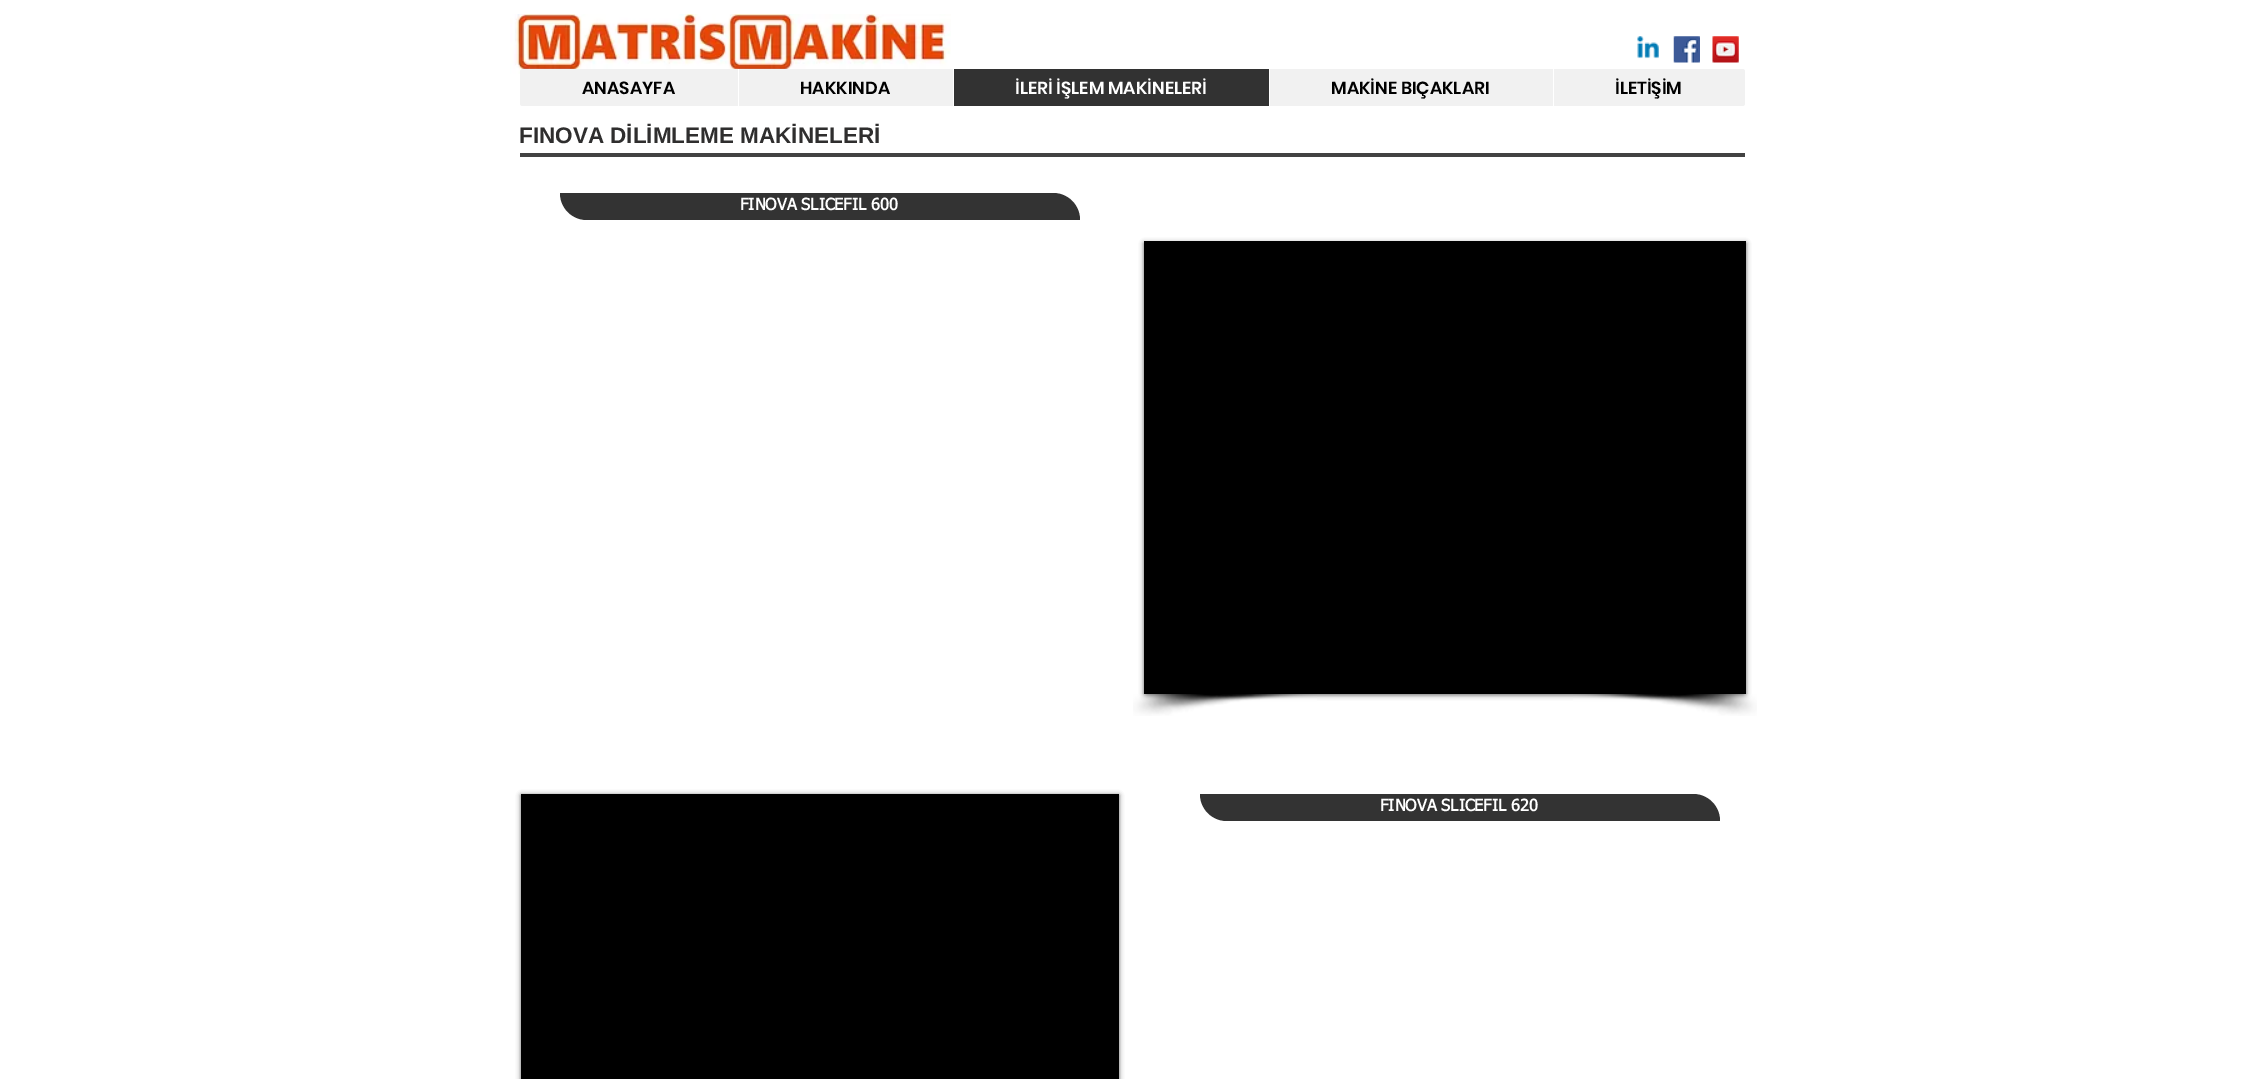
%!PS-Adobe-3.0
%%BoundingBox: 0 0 2263 1079
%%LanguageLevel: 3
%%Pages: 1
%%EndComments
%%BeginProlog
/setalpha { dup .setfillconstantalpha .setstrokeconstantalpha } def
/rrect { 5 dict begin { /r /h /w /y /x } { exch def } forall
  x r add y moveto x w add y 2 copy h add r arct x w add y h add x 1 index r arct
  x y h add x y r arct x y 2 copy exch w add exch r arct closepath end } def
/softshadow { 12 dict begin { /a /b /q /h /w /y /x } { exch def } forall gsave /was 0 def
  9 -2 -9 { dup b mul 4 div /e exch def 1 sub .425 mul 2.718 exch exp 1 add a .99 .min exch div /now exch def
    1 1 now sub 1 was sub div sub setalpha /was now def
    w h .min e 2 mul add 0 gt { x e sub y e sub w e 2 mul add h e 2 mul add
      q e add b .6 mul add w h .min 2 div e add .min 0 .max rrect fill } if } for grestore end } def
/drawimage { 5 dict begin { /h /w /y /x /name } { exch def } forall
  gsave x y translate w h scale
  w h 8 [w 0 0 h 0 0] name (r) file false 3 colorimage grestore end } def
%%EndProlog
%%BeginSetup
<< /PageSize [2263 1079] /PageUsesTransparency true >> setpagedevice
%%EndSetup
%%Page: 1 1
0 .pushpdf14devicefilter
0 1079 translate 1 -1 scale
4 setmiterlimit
1 setgray
0 0 2263 1079 rectfill
(images/1.raw) 510 13 441 61 drawimage
(images/2.raw) 1637 36 22 23 drawimage
(images/3.raw) 1673 36 27 27 drawimage
(images/4.raw) 1712 36 27 27 drawimage
0.945 setgray
520 69 1225 37 2.5 rrect fill
1 setgray
738 69 1 37 rectfill
0.196 setgray
954 69 315 37 rectfill
1 setgray
953 69 1 37 rectfill
1269 69 1 37 rectfill
1553 69 1 37 rectfill
0.259 setgray
520 153 1225 4 rectfill
0.2 setgray
newpath 560 193 moveto 1053 193 lineto 1068 193 1080 205 1080 220 curveto 587 220 lineto 572 220 560 208 560 193 curveto closepath fill
0 setgray
1144 243 602 452 0 2.5 0.6 softshadow
1144 241 602 453 rectfill
(images/5.raw) 1133 694 184 22 drawimage
(images/6.raw) 1573 694 184 22 drawimage
521 795 598 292 0 2.5 0.6 softshadow
521 794 598 285 rectfill
0.2 setgray
newpath 1200 794 moveto 1693 794 lineto 1708 794 1720 806 1720 821 curveto 1227 821 lineto 1212 821 1200 809 1200 794 curveto closepath fill
/Poppins-SemiBold [17.5 0 0 -17.5 0 0] selectfont
0 setgray
582 94 moveto (ANASAYFA) show
800 94 moveto (HAKKINDA) show
1 setgray
1015 94 moveto (İLERİ İŞLEM MAKİNELERİ) show
0 setgray
1331 94 moveto (MAKİNE BIÇAKLARI) show
1615 94 moveto (İLETİŞİM) show
/LiberationSans-Bold [22.5 0 0 -22.5 0 0] selectfont
0.184 0.18 0.18 setrgbcolor
519 143 moveto (FINOVA DİLİMLEME MAKİNELERİ) show
/tahoma-Bold [16.25 0 0 -16.25 0 0] selectfont
1 setgray
740 210 moveto (FINOVA SLICEFIL 600) show
1380 811 moveto (FINOVA SLICEFIL 620) show
.poppdf14devicefilter showpage
%%EOF
